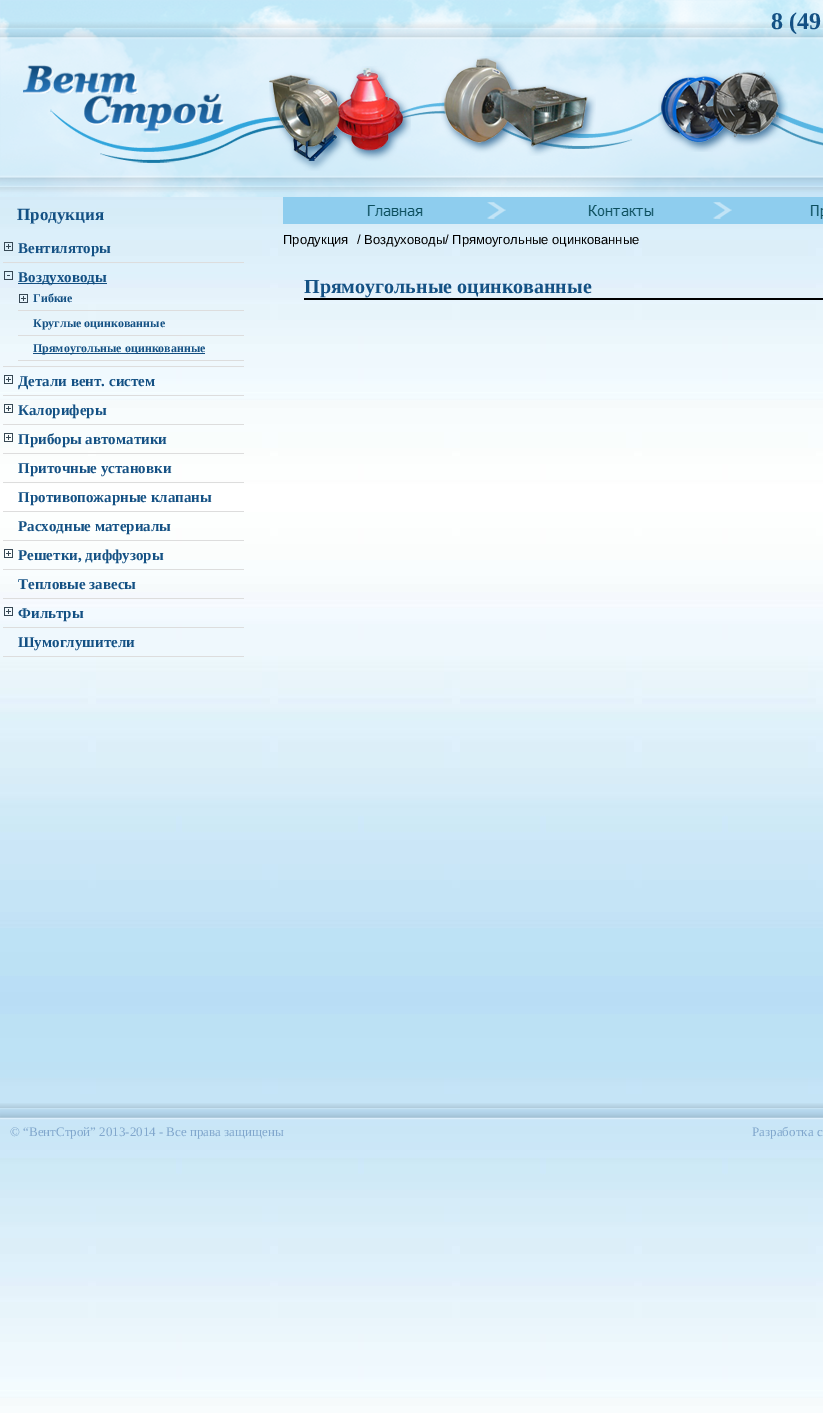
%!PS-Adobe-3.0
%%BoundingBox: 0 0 823 1413
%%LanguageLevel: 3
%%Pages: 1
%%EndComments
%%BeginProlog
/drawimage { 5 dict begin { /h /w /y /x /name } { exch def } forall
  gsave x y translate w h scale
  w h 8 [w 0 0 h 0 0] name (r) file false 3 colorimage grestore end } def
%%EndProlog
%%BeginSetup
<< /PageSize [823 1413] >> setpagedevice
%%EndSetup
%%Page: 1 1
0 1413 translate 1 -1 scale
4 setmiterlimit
1 setgray
0 0 823 1413 rectfill
(images/1.raw) 0 197 823 1216 drawimage
(images/2.raw) 0 0 823 197 drawimage
(images/3.raw) 23 65 202 69 drawimage
(images/4.raw) 269 66 142 105 drawimage
(images/5.raw) 441 56 155 100 drawimage
(images/6.raw) 658 70 130 82 drawimage
0.867 setgray
3 262 241 1 rectfill
(images/7.raw) 4 242 9 9 drawimage
3 366 241 1 rectfill
(images/8.raw) 4 271 9 9 drawimage
0.078 0.31 0.506 setrgbcolor
18 283 89 1 rectfill
0.867 setgray
18 310 226 1 rectfill
(images/9.raw) 19 294 9 9 drawimage
18 335 226 1 rectfill
18 360 226 1 rectfill
0.078 0.31 0.506 setrgbcolor
33 353 172 1 rectfill
0.867 setgray
3 395 241 1 rectfill
(images/10.raw) 4 375 9 9 drawimage
3 424 241 1 rectfill
(images/11.raw) 4 404 9 9 drawimage
3 453 241 1 rectfill
(images/12.raw) 4 433 9 9 drawimage
3 482 241 1 rectfill
3 511 241 1 rectfill
3 540 241 1 rectfill
3 569 241 1 rectfill
(images/13.raw) 4 549 9 9 drawimage
3 598 241 1 rectfill
3 627 241 1 rectfill
(images/14.raw) 4 607 9 9 drawimage
3 656 241 1 rectfill
0.557 0.804 0.933 setrgbcolor
283 197 540 27 rectfill
(images/15.raw) 367 202 139 17 drawimage
(images/16.raw) 588 202 144 17 drawimage
(images/17.raw) 810 205 13 14 drawimage
0 setgray
304 298 519 2 rectfill
(images/18.raw) 0 1103 823 17 drawimage
/LiberationSerif-Bold [24 0 0 -24 0 0] selectfont
0.078 0.318 0.518 setrgbcolor
771 29 moveto (8 \(49) show
/LiberationSerif-Bold [17 0 0 -17 0 0] selectfont
17 220 moveto (Продукция) show
/LiberationSerif-Bold [15 0 0 -15 0 0] selectfont
18 253 moveto (Вентиляторы) show
18 282 moveto (Воздуховоды) show
/LiberationSerif-Bold [12 0 0 -12 0 0] selectfont
33 302 moveto (Гибкие) show
33 327 moveto (Круглые оцинкованные) show
33 352 moveto (Прямоугольные оцинкованные) show
/LiberationSerif-Bold [15 0 0 -15 0 0] selectfont
18 386 moveto (Детали вент. систем) show
18 415 moveto (Калориферы) show
18 444 moveto (Приборы автоматики) show
18 473 moveto (Приточные установки) show
18 502 moveto (Противопожарные клапаны) show
18 531 moveto (Расходные материалы) show
18 560 moveto (Решетки, диффузоры) show
18 589 moveto (Тепловые завесы) show
18 618 moveto (Фильтры) show
18 647 moveto (Шумоглушители) show
/LiberationSans-Regular [13 0 0 -13 0 0] selectfont
0 setgray
283 244 moveto (Продукция) show
357 244 moveto (/ Воздуховоды/ Прямоугольные оцинкованные) show
/LiberationSerif-Bold [20 0 0 -20 0 0] selectfont
0.078 0.318 0.518 setrgbcolor
304 293 moveto (Прямоугольные оцинкованные) show
/LiberationSerif-Regular [13 0 0 -13 0 0] selectfont
0.506 0.655 0.804 setrgbcolor
10 1136 moveto (© “ВентСтрой” 2013-2014 - Все права защищены) show
752 1136 moveto (Разработка с) show
showpage
%%EOF
